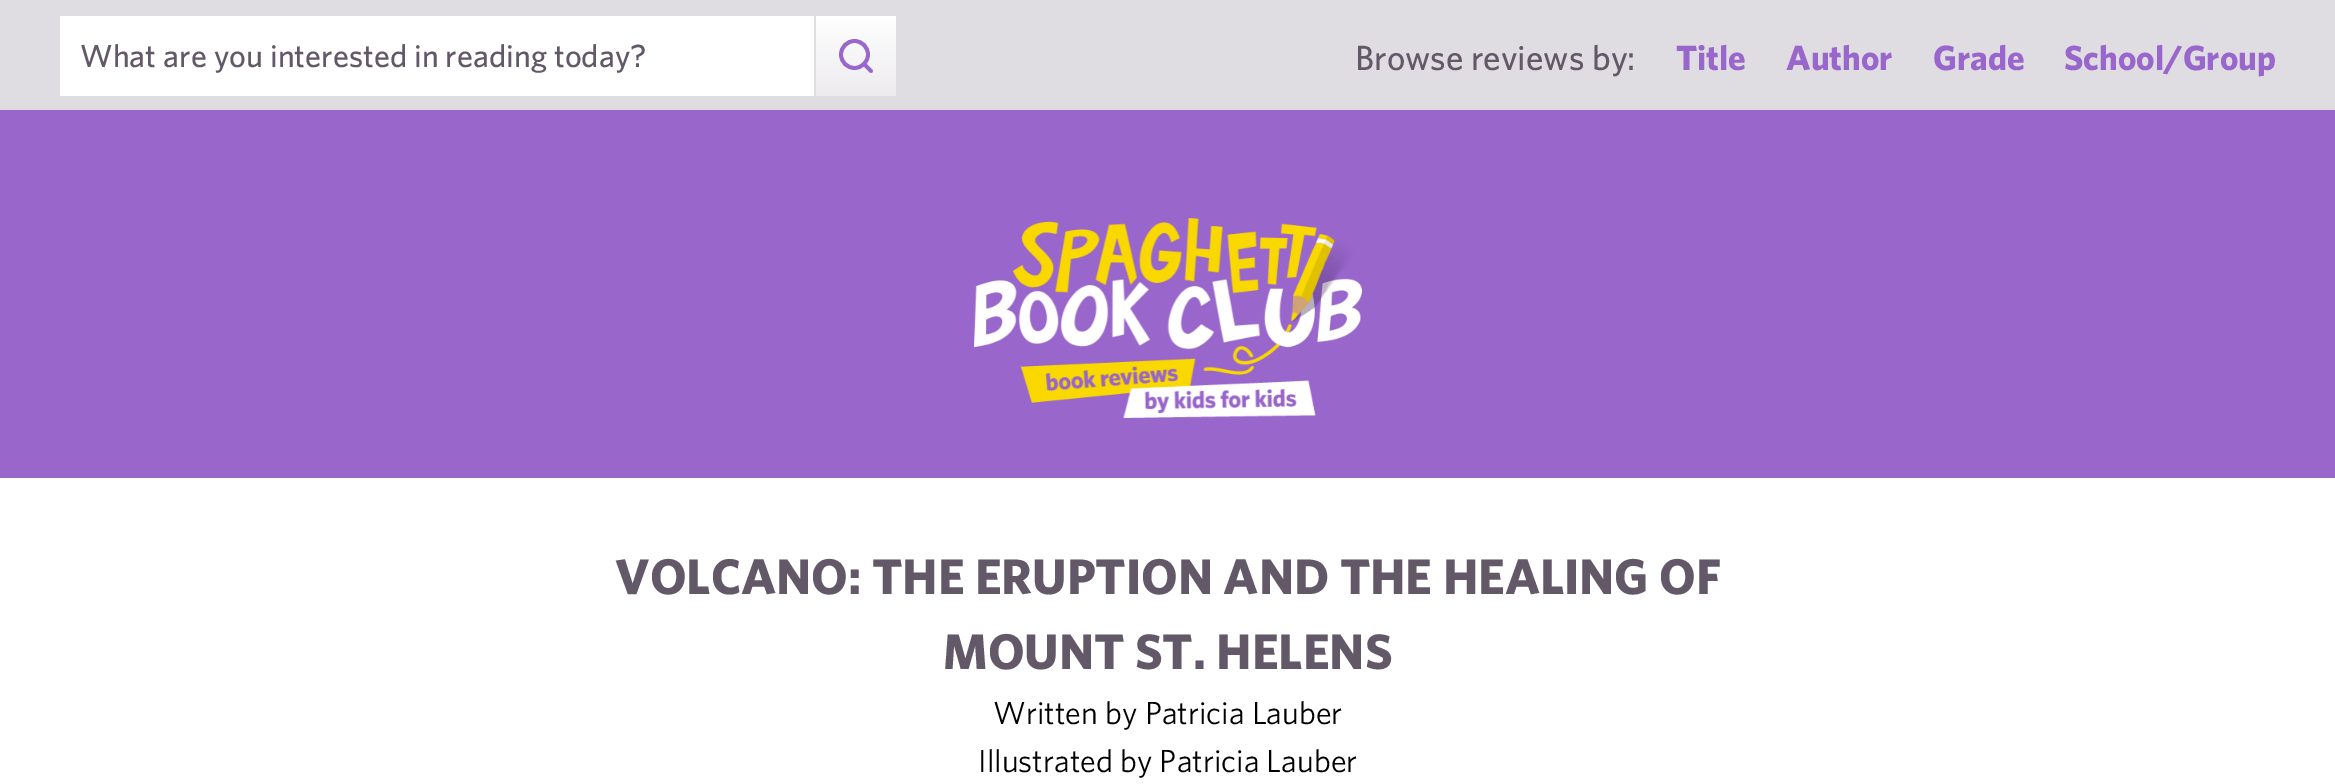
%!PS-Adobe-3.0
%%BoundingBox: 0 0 2335 784
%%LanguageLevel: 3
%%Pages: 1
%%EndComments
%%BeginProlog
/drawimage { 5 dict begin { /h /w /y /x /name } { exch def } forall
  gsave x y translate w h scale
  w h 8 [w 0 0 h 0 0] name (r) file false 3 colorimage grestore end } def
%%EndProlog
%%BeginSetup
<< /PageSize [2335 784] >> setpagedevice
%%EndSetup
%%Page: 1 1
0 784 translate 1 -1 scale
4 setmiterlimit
0.6 0.4 0.8 setrgbcolor
0 0 2335 784 rectfill
0.878 0.867 0.886 setrgbcolor
0 0 2335 110 rectfill
1 setgray
60 16 754 80 rectfill
gsave newpath 816 16 moveto 896 16 lineto 896 96 lineto 816 96 lineto closepath clip newpath
<< /ShadingType 2 /ColorSpace /DeviceRGB /Coords [817 96 817 -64] /Extend [true true] /Function << /FunctionType 3 /Domain [0 1] /Functions [<< /FunctionType 2 /Domain [0 1] /C0 [0.929 0.922 0.933] /C1 [1 1 1] /N 1 >> << /FunctionType 2 /Domain [0 1] /C0 [1 1 1] /C1 [1 1 1] /N 1 >>] /Bounds [0.5] /Encode [0 1 0 1] >> >> shfill grestore
0.6 0.4 0.8 setrgbcolor
3.8 setlinewidth
newpath 854.5 54.5 13.5 0 360 arc closepath stroke
1 setlinecap
1 setlinejoin
newpath 871 71 moveto 864 64 lineto stroke
(images/1.raw) 974 218 388 200 drawimage
1 setgray
0 478 2335 306 rectfill
/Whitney-Medium [32 0 0 -32 0 0] selectfont
0.384 0.345 0.408 setrgbcolor
80 67 moveto (What are you interested in reading today?) show
/Whitney-Medium [35 0 0 -35 0 0] selectfont
1355 70 moveto (Browse reviews by:) show
/Whitney-Bold [35 0 0 -35 0 0] selectfont
0.6 0.4 0.8 setrgbcolor
1676 70 moveto (Title) show
1786 70 moveto (Author) show
1933 70 moveto (Grade) show
2064 70 moveto (School/Group) show
/Whitney-Bold [50 0 0 -50 0 0] selectfont
0.384 0.345 0.408 setrgbcolor
615 594 moveto (VOLCANO: THE ERUPTION AND THE HEALING OF) show
943 669 moveto (MOUNT ST. HELENS) show
/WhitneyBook-Regular [32 0 0 -32 0 0] selectfont
0 setgray
993 724 moveto (Written by Patricia Lauber) show
978 772 moveto (Illustrated by Patricia Lauber) show
showpage
%%EOF
